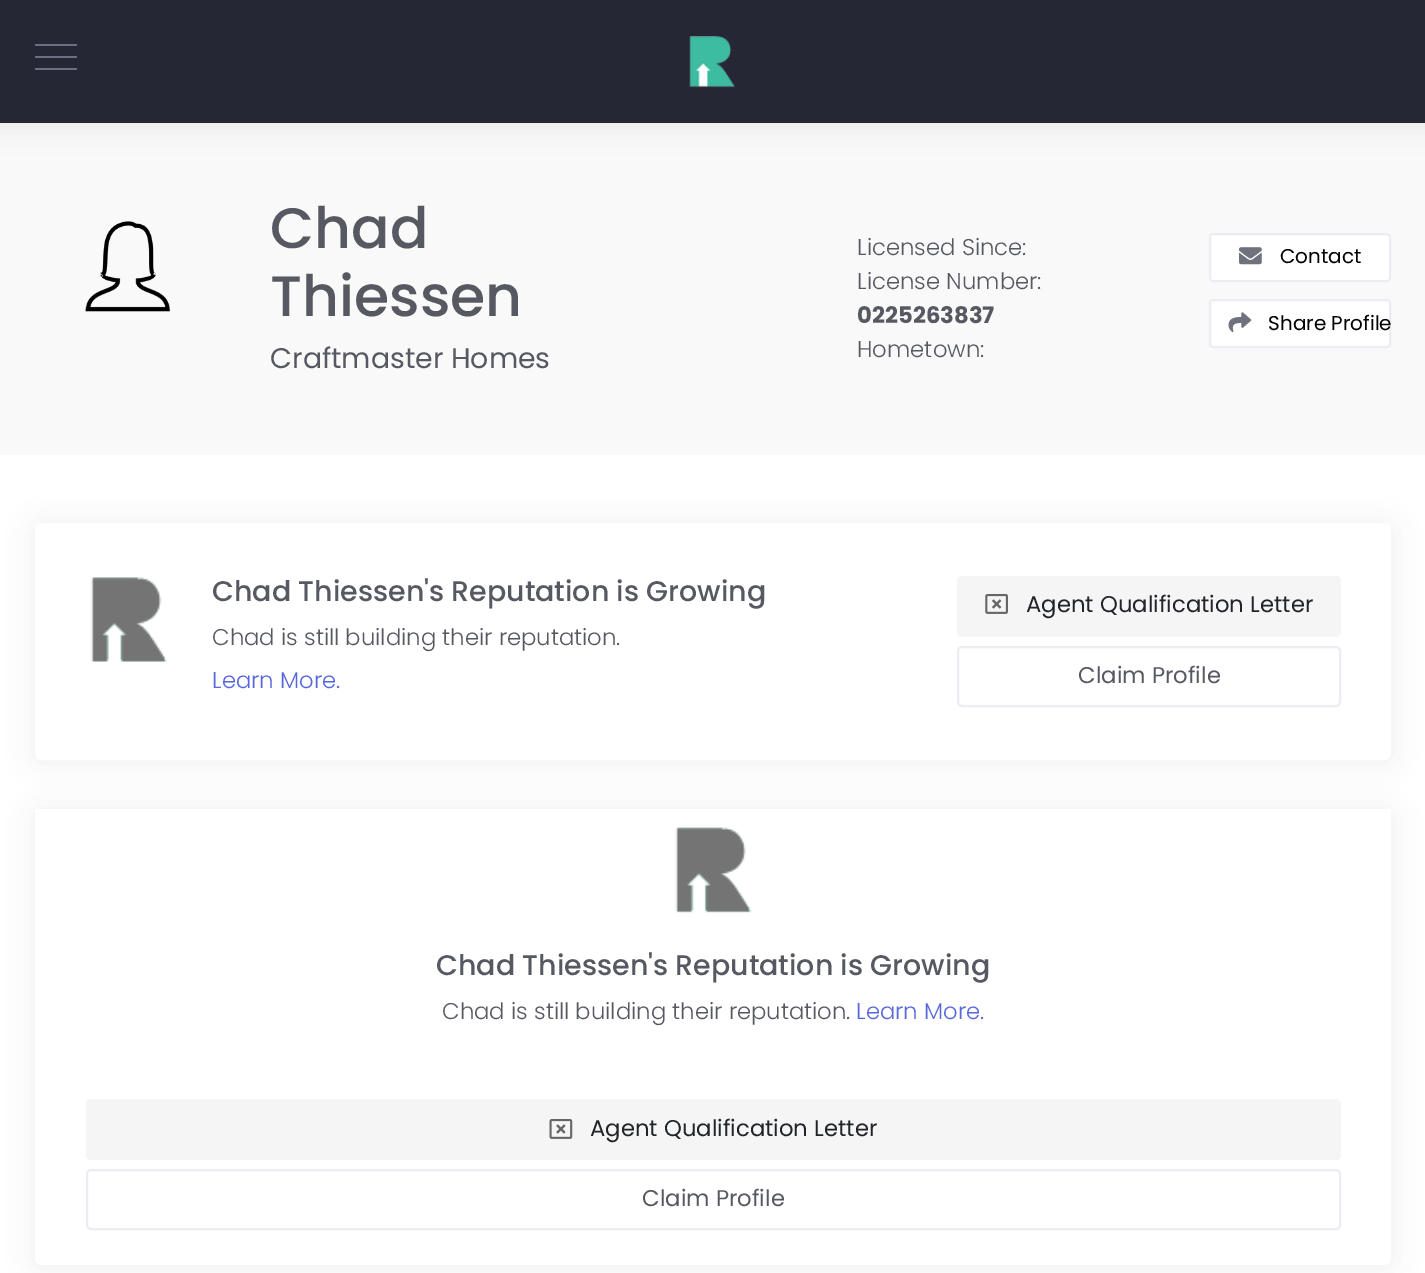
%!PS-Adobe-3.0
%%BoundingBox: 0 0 1425 1273
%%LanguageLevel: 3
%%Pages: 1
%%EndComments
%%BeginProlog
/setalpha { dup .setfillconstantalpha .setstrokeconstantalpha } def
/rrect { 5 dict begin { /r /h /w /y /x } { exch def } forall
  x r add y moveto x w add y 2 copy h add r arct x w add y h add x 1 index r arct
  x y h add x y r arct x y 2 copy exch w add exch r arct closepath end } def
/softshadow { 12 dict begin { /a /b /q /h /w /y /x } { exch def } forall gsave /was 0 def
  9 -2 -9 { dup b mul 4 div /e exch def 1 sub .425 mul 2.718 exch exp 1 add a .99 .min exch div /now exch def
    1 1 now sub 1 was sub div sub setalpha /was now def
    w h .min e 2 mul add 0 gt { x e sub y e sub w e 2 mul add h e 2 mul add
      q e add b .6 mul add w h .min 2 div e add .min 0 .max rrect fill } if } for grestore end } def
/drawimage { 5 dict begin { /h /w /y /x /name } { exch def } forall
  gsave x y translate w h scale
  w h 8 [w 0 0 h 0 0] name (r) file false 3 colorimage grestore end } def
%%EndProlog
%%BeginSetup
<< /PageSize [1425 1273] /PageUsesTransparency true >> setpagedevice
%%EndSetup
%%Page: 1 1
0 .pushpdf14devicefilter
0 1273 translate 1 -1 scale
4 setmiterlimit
1 setgray
0 0 1425 1273 rectfill
0.976 setgray
0 123 1425 332 rectfill
0.318 0.302 0.361 setrgbcolor
-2 0 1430 126 0 13 0.1 softshadow
0.149 0.153 0.204 setrgbcolor
0 0 1425 123 rectfill
0.424 0.431 0.525 setrgbcolor
35 56 42 2 1 rrect fill
35 44 42 2 1 rrect fill
35 68 42 2 1 rrect fill
(images/1.raw) 689 36 46 52 drawimage
(images/2.raw) 85 221 85 91 drawimage
1 setgray
1210 234 180 47 3 rrect gsave fill grestore
0.922 0.929 0.949 setrgbcolor
2 setlinewidth
stroke
(images/3.raw) 1239 247 23 18 drawimage
1 setgray
1210 300 180 47 3 rrect gsave fill grestore
0.922 0.929 0.949 setrgbcolor
stroke
(images/4.raw) 1228 312 24 21 drawimage
0.318 0.302 0.361 setrgbcolor
33 523 1360 240 9 13 0.08 softshadow
1 setgray
35 523 1356 237 7 rrect fill
(images/5.raw) 90 577 77 85 drawimage
0.961 setgray
957 576 384 61 5 rrect fill
(images/6.raw) 985 594 23 20 drawimage
0.922 0.929 0.949 setrgbcolor
958 647 382 59 4 rrect stroke
0.318 0.302 0.361 setrgbcolor
33 809 1360 460 9 13 0.08 softshadow
1 setgray
newpath 35 809 moveto 1391 809 lineto 1391 1258 lineto 1391 1262 1388 1265 1384 1265 curveto 42 1265 lineto 38 1265 35 1262 35 1258 curveto closepath fill
(images/7.raw) 675 827 77 86 drawimage
0.961 setgray
86 1099 1255 61 5 rrect fill
(images/8.raw) 549 1119 24 20 drawimage
0.922 0.929 0.949 setrgbcolor
87 1170 1253 59 4 rrect stroke
/Poppins-Medium [57 0 0 -57 0 0] selectfont
0.341 0.349 0.384 setrgbcolor
270 248 moveto (Chad) show
270 316 moveto (Thiessen) show
/Poppins-Regular [28.4 0 0 -28.4 0 0] selectfont
270 368 moveto (Craftmaster Homes) show
/Poppins-Light [22.75 0 0 -22.75 0 0] selectfont
857 255 moveto (Licensed Since:) show
857 289 moveto (License Number:) show
/Poppins-Bold [22.75 0 0 -22.75 0 0] selectfont
857 323 moveto (0225263837) show
/Poppins-Light [22.75 0 0 -22.75 0 0] selectfont
857 357 moveto (Hometown:) show
/Poppins-Regular [20 0 0 -20 0 0] selectfont
0 setgray
1280 263 moveto (Contact) show
1268 330 moveto (Share Profile) show
/Poppins-Medium [28.4 0 0 -28.4 0 0] selectfont
0.341 0.349 0.384 setrgbcolor
212 601 moveto (Chad Thiessen's Reputation is Growing) show
/Poppins-Light [22.75 0 0 -22.75 0 0] selectfont
212 645 moveto (Chad is still building their reputation.) show
0.345 0.404 0.867 setrgbcolor
212 688 moveto (Learn More.) show
/Poppins-Regular [22.75 0 0 -22.75 0 0] selectfont
0.129 0.145 0.161 setrgbcolor
1026 612 moveto (Agent Qualification Letter) show
0.341 0.349 0.384 setrgbcolor
1078 683 moveto (Claim Profile) show
/Poppins-Medium [28.4 0 0 -28.4 0 0] selectfont
436 975 moveto (Chad Thiessen's Reputation is Growing) show
/Poppins-Light [22.75 0 0 -22.75 0 0] selectfont
442 1019 moveto (Chad is still building their reputation.) show
0.345 0.404 0.867 setrgbcolor
856 1019 moveto (Learn More.) show
/Poppins-Regular [22.75 0 0 -22.75 0 0] selectfont
0.129 0.145 0.161 setrgbcolor
590 1136 moveto (Agent Qualification Letter) show
0.341 0.349 0.384 setrgbcolor
642 1206 moveto (Claim Profile) show
.poppdf14devicefilter showpage
%%EOF
